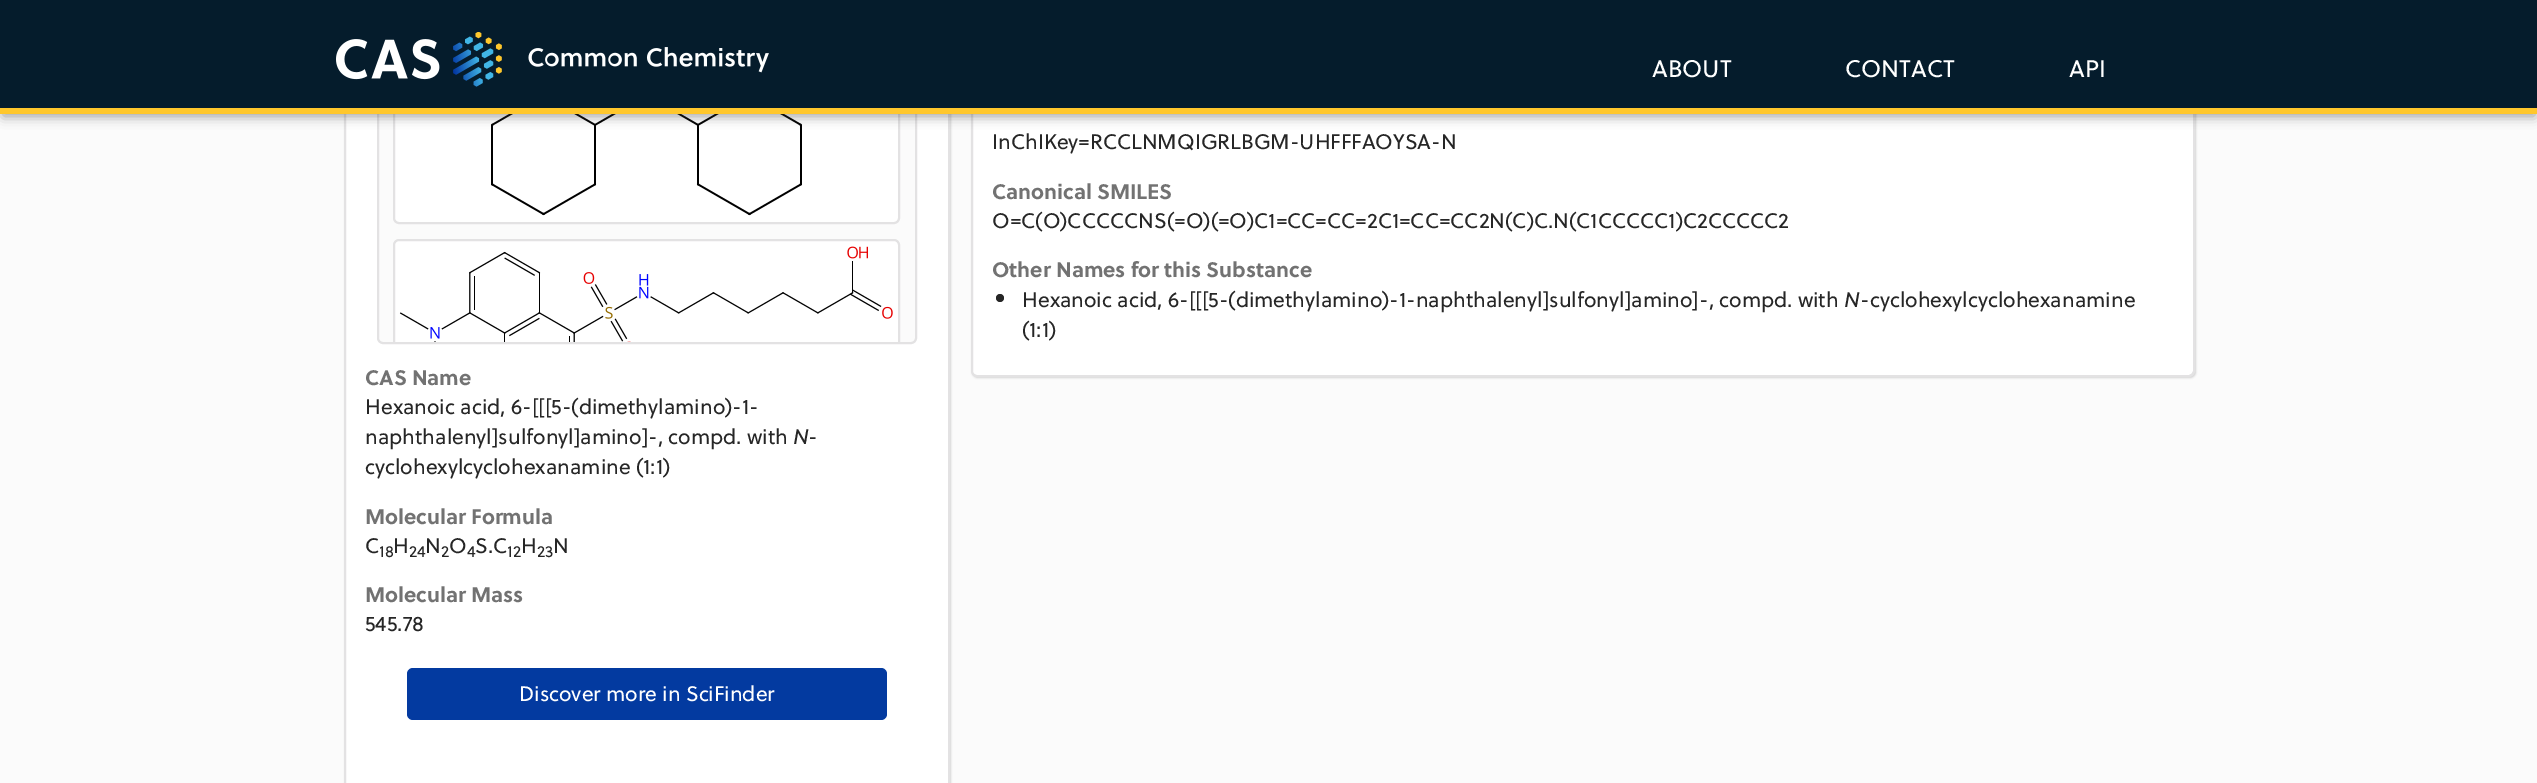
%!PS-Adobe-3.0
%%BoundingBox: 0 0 2537 783
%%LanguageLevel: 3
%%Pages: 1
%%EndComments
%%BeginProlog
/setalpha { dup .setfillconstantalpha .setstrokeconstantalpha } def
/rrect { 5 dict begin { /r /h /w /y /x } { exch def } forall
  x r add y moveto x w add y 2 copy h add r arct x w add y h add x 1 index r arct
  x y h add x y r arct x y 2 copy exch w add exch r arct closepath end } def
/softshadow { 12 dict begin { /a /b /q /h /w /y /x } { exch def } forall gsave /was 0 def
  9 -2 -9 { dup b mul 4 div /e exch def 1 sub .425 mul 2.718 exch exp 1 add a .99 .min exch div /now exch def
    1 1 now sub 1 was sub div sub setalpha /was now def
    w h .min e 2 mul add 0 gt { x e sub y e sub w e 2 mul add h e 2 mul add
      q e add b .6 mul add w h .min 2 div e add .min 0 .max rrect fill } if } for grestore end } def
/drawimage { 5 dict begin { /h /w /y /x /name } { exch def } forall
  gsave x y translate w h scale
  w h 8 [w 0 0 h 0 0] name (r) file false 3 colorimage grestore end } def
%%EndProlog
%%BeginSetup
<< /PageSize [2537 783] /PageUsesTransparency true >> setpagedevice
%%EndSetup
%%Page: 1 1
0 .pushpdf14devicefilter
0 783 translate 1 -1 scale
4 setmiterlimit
0.984 setgray
0 0 2537 783 rectfill
0 setgray
972 -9 1224 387 6 1 0.16 softshadow
1 setgray
972 -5 1221 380 5 rrect fill
0.89 0.886 0.89 setrgbcolor
2 setlinewidth
972 -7 1222 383 5 rrect stroke
0 setgray
345 -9 606 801 6 1 0.16 softshadow
1 setgray
346 114 602 669 rectfill
0.89 0.886 0.89 setrgbcolor
345 -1 604 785 rectstroke
0.984 setgray
378 45 538 298 5 rrect gsave fill grestore
0.89 0.886 0.89 setrgbcolor
stroke
1 setgray
394 61 505 162 5 rrect gsave fill grestore
0.89 0.886 0.89 setrgbcolor
stroke
(images/2.raw) 491 114 311 102 drawimage
0.196 setgray
3 8 2532 108 0 6 0.5 softshadow
0.02 0.11 0.173 setrgbcolor
0 0 2537 108 rectfill
1 0.78 0.173 setrgbcolor
0 108 2537 6 rectfill
(images/1.raw) 336 32 433 55 drawimage
0.149 setgray
newpath 1000 298 4 0 360 arc closepath fill
1 setgray
newpath 399 239 moveto 894 239 lineto 897.5 239 900 241.5 900 245 curveto 900 342 lineto 393 342 lineto 393 245 lineto 393 241.5 395.5 239 399 239 curveto closepath fill
0.012 0.227 0.627 setrgbcolor
407 668 480 52 6 rrect fill
/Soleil-Regular [24 0 0 -24 0 0] selectfont
1 setgray
1652 77 moveto (ABOUT) show
1845 77 moveto (CONTACT) show
2069 77 moveto (API) show
/Soleil-Regular [21 0 0 -21 0 0] selectfont
0.149 setgray
992 149 moveto (InChIKey=RCCLNMQIGRLBGM-UHFFFAOYSA-N) show
/Soleil-Bold [21 0 0 -21 0 0] selectfont
0.447 setgray
992 199 moveto (Canonical SMILES) show
/Soleil-Regular [21 0 0 -21 0 0] selectfont
0.149 setgray
992 228 moveto (O=C\(O\)CCCCCNS\(=O\)\(=O\)C1=CC=CC=2C1=CC=CC2N\(C\)C.N\(C1CCCCC1\)C2CCCCC2) show
/Soleil-Bold [21 0 0 -21 0 0] selectfont
0.447 setgray
992 277 moveto (Other Names for this Substance) show
/Soleil-Regular [21 0 0 -21 0 0] selectfont
0.149 setgray
1022 307 moveto (Hexanoic acid, 6-[[[5-\(dimethylamino\)-1-naphthalenyl]sulfonyl]amino]-, compd. with) show
/Soleil-Italic [21 0 0 -21 0 0] selectfont
1844 307 moveto (N) show
/Soleil-Regular [21 0 0 -21 0 0] selectfont
1860 307 moveto (-cyclohexylcyclohexanamine) show
1022 337 moveto (\(1:1\)) show
/Soleil-Bold [21 0 0 -21 0 0] selectfont
0.447 setgray
365 385 moveto (CAS Name) show
/Soleil-Regular [21 0 0 -21 0 0] selectfont
0.149 setgray
365 414 moveto (Hexanoic acid, 6-[[[5-\(dimethylamino\)-1-) show
gsave
378 45 537 297 rectclip
0.89 0.886 0.89 setrgbcolor
394 240 505 161 5 rrect stroke
grestore
(images/3.raw) 399 246 494 96 drawimage
365 444 moveto (naphthalenyl]sulfonyl]amino]-, compd. with) show
/Soleil-Italic [21 0 0 -21 0 0] selectfont
793 444 moveto (N) show
/Soleil-Regular [21 0 0 -21 0 0] selectfont
808 444 moveto (-) show
365 474 moveto (cyclohexylcyclohexanamine \(1:1\)) show
/Soleil-Bold [21 0 0 -21 0 0] selectfont
0.447 setgray
365 524 moveto (Molecular Formula) show
/Soleil-Regular [21 0 0 -21 0 0] selectfont
0.149 setgray
365 553 moveto (C) show
/Soleil-Regular [16 0 0 -16 0 0] selectfont
379 557 moveto (18) show
/Soleil-Regular [21 0 0 -21 0 0] selectfont
393 553 moveto (H) show
/Soleil-Regular [16 0 0 -16 0 0] selectfont
409 557 moveto (24) show
/Soleil-Regular [21 0 0 -21 0 0] selectfont
425 553 moveto (N) show
/Soleil-Regular [16 0 0 -16 0 0] selectfont
441 557 moveto (2) show
/Soleil-Regular [21 0 0 -21 0 0] selectfont
449 553 moveto (O) show
/Soleil-Regular [16 0 0 -16 0 0] selectfont
467 557 moveto (4) show
/Soleil-Regular [21 0 0 -21 0 0] selectfont
475 553 moveto (S.C) show
/Soleil-Regular [16 0 0 -16 0 0] selectfont
507 557 moveto (12) show
/Soleil-Regular [21 0 0 -21 0 0] selectfont
521 553 moveto (H) show
/Soleil-Regular [16 0 0 -16 0 0] selectfont
537 557 moveto (23) show
/Soleil-Regular [21 0 0 -21 0 0] selectfont
553 553 moveto (N) show
/Soleil-Bold [21 0 0 -21 0 0] selectfont
0.447 setgray
365 602 moveto (Molecular Mass) show
/Soleil-Regular [21 0 0 -21 0 0] selectfont
0.149 setgray
365 631 moveto (545.78) show
1 setgray
519 701 moveto (Discover more in SciFinder) show
.poppdf14devicefilter showpage
%%EOF
